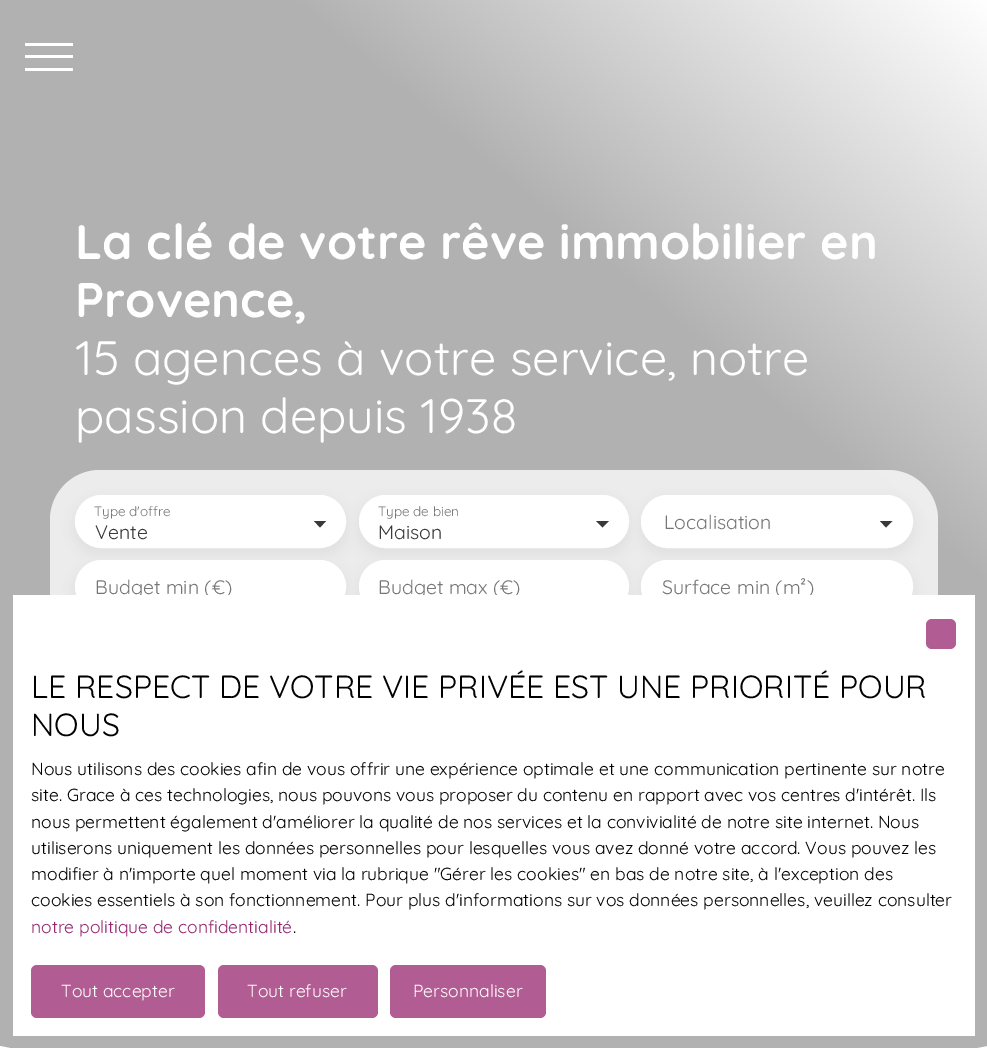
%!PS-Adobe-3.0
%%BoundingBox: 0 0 987 1048
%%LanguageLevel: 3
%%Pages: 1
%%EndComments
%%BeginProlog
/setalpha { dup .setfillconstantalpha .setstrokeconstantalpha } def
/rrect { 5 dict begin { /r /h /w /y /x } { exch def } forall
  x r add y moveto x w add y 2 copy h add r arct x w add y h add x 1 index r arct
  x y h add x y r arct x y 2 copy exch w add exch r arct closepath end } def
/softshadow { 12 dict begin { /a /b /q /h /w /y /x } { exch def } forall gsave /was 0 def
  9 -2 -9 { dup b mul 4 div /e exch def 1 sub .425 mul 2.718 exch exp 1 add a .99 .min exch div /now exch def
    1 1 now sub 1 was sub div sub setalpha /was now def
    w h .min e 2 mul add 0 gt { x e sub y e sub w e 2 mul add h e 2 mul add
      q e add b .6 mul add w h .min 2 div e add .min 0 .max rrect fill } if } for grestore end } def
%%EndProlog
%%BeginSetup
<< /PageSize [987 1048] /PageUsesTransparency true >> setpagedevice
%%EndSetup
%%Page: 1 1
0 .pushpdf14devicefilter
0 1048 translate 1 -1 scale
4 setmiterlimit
1 setgray
0 0 987 1048 rectfill
gsave newpath 0 0 moveto 987 0 lineto 987 1048 lineto 0 1048 lineto closepath clip newpath
<< /ShadingType 2 /ColorSpace /DeviceRGB /Coords [6.9 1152 981 -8] /Extend [true true] /Function << /FunctionType 3 /Domain [0 1] /Functions [<< /FunctionType 2 /Domain [0 1] /C0 [0.694 0.694 0.694] /C1 [0.694 0.694 0.694] /N 1 >> << /FunctionType 2 /Domain [0 1] /C0 [0.694 0.694 0.694] /C1 [1 1 1] /N 1 >>] /Bounds [0.7] /Encode [0 1 0 1] >> >> shfill grestore
25 43 48 3 rectfill
25 55 48 3 rectfill
25 68 48 3 rectfill
0.5 setalpha
50 470 888 233 50 rrect fill
50 470 888 233 50 rrect fill
1 setalpha
0.42 setgray
75 501 271 53 26.5 6 0.1 softshadow
1 setgray
75.5 495.5 270 52 26 rrect gsave fill grestore
stroke
0.224 setgray
newpath 314 521 moveto 326 521 lineto 320 527.5 lineto closepath fill
0.42 setgray
359 501 270 53 26.5 6 0.1 softshadow
1 setgray
359.5 495.5 269 52 26 rrect gsave fill grestore
stroke
0.224 setgray
newpath 596 521 moveto 609 521 lineto 602.5 527.5 lineto closepath fill
0.42 setgray
641 501 272 53 26.5 6 0.1 softshadow
1 setgray
641.5 495.5 271 52 26 rrect gsave fill grestore
stroke
0.224 setgray
newpath 880 521 moveto 892.5 521 lineto 886 527.5 lineto closepath fill
0.42 setgray
75 566 271 53 26.5 6 0.1 softshadow
1 setgray
75.5 560.5 270 52 26 rrect gsave fill grestore
stroke
0.42 setgray
359 566 270 53 26.5 6 0.1 softshadow
1 setgray
359.5 560.5 269 52 26 rrect gsave fill grestore
stroke
0.42 setgray
641 566 272 53 26.5 6 0.1 softshadow
1 setgray
641.5 560.5 271 52 26 rrect gsave fill grestore
stroke
newpath 494 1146 moveto 0 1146 lineto 0 1046 lineto closepath fill
newpath 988 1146 moveto 494 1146 lineto 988 1046 lineto closepath fill
/Quicksand-Bold [48.5 0 0 -48.5 0 0] selectfont
75 259 moveto (La clé de votre rêve immobilier en) show
75 317 moveto (Provence,) show
/Quicksand-Regular [48.5 0 0 -48.5 0 0] selectfont
75 375 moveto (15 agences à votre service, notre) show
75 433 moveto (passion depuis 1938) show
/Quicksand-Regular [13.5 0 0 -13.5 0 0] selectfont
0.463 setgray
94 516 moveto (Type d'offre) show
/Quicksand-Regular [19.5 0 0 -19.5 0 0] selectfont
0.224 setgray
95 539 moveto (Vente) show
/Quicksand-Regular [13.5 0 0 -13.5 0 0] selectfont
0.463 setgray
378 516 moveto (Type de bien) show
/Quicksand-Regular [19.5 0 0 -19.5 0 0] selectfont
0.224 setgray
378 539 moveto (Maison) show
0.463 setgray
664 529 moveto (Localisation) show
95 594 moveto (Budget min \(€\)) show
378 594 moveto (Budget max \(€\)) show
662 594 moveto (Surface min \(m²\)) show
1 setgray
13 595 962 441 rectfill
0.698 0.361 0.58 setrgbcolor
926 619 30 30 6 rrect fill
/Quicksand-Regular [32 0 0 -32 0 0] selectfont
0 setgray
31 698 moveto (LE RESPECT DE VOTRE VIE PRIVÉE EST UNE PRIORITÉ POUR) show
31 736 moveto (NOUS) show
/Quicksand-Regular [17.5 0 0 -17.5 0 0] selectfont
31 775 moveto (Nous utilisons des cookies afin de vous offrir une expérience optimale et une communication pertinente sur notre) show
31 801 moveto (site. Grace à ces technologies, nous pouvons vous proposer du contenu en rapport avec vos centres d'intérêt. Ils) show
31 828 moveto (nous permettent également d'améliorer la qualité de nos services et la convivialité de notre site internet. Nous) show
31 854 moveto (utiliserons uniquement les données personnelles pour lesquelles vous avez donné votre accord. Vous pouvez les) show
31 880 moveto (modifier à n'importe quel moment via la rubrique ″Gérer les cookies″ en bas de notre site, à l'exception des) show
31 906 moveto (cookies essentiels à son fonctionnement. Pour plus d'informations sur vos données personnelles, veuillez consulter) show
0.588 0.145 0.439 setrgbcolor
31 933 moveto (notre politique de confidentialité) show
0 setgray
293 933 moveto (.) show
0.698 0.361 0.58 setrgbcolor
31 965 174 53 6 rrect fill
1 setgray
61 997 moveto (Tout accepter) show
0.698 0.361 0.58 setrgbcolor
218 965 160 53 6 rrect fill
1 setgray
247 997 moveto (Tout refuser) show
0.698 0.361 0.58 setrgbcolor
390 965 156 53 6 rrect fill
1 setgray
413 997 moveto (Personnaliser) show
.poppdf14devicefilter showpage
%%EOF
